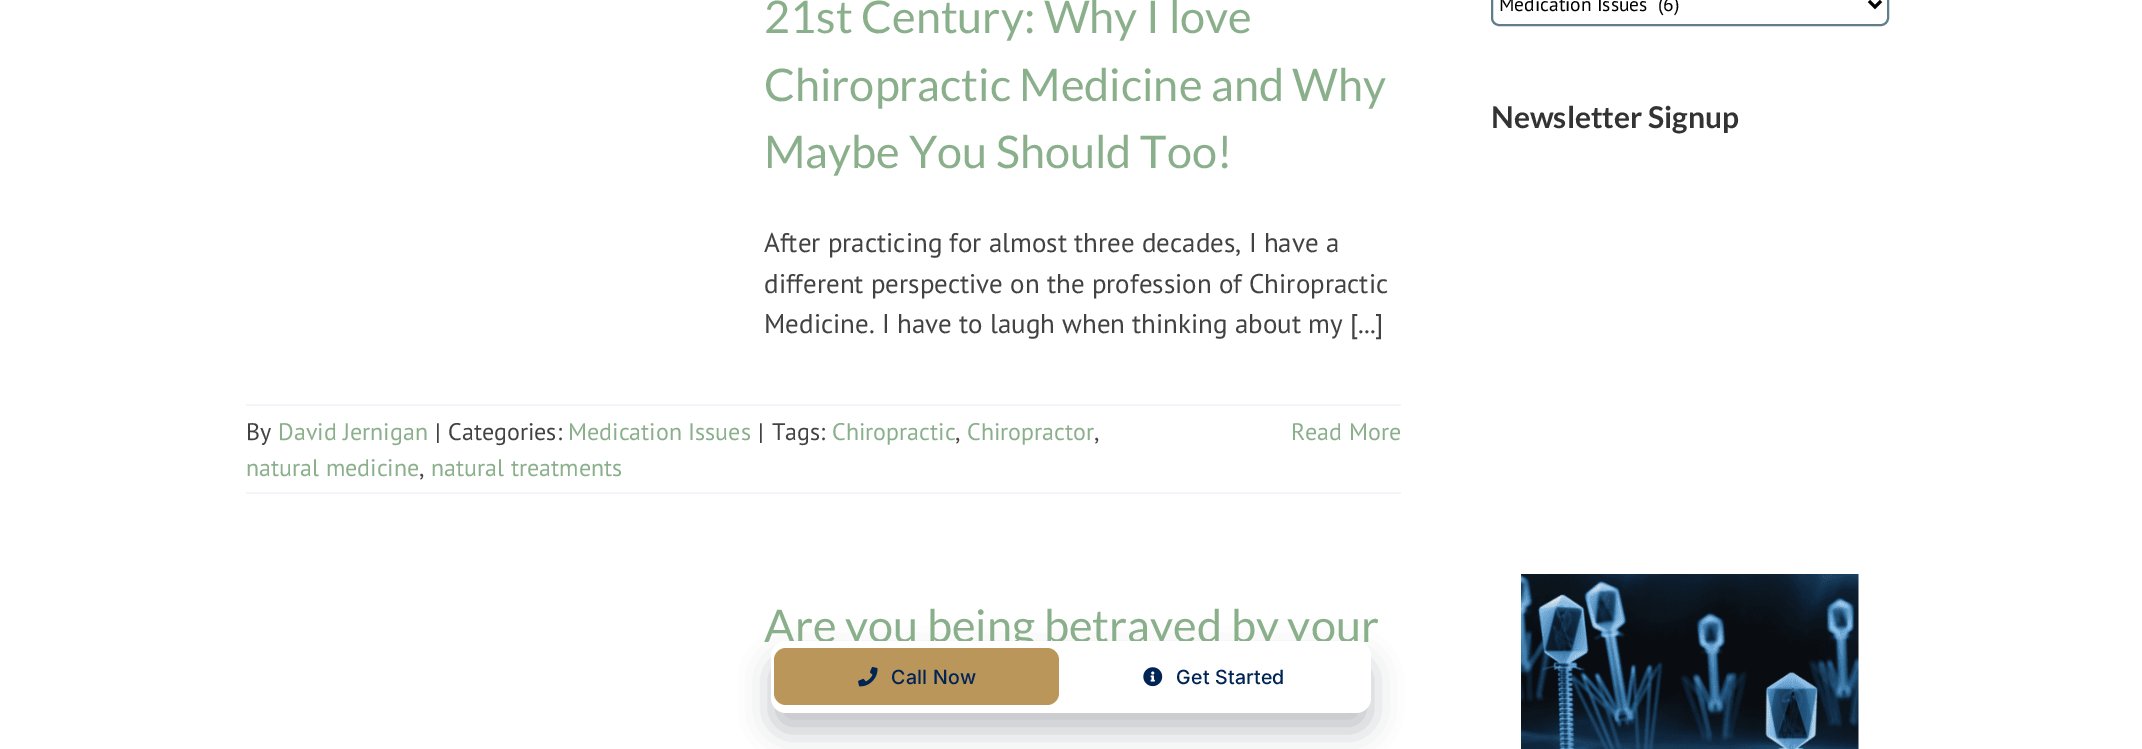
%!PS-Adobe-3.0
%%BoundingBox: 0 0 2142 749
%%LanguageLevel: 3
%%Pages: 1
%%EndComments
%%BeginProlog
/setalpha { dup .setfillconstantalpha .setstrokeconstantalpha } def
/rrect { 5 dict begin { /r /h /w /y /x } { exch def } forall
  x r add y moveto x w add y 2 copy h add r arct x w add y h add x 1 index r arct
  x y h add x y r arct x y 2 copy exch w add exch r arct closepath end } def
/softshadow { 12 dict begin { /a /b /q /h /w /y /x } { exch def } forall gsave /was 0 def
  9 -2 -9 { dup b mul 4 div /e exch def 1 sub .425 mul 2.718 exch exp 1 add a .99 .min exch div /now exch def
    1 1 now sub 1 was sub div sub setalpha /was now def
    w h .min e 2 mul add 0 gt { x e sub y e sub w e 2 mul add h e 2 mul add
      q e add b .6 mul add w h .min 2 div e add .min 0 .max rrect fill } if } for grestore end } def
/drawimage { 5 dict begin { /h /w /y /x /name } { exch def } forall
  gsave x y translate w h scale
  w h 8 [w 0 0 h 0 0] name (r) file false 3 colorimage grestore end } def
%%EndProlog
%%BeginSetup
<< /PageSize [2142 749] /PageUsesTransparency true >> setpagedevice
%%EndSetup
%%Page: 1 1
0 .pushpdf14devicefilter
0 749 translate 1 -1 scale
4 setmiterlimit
1 setgray
0 0 2142 749 rectfill
0.957 0.961 0.984 setrgbcolor
246 404 1155 2 rectfill
246 492 1155 2 rectfill
0.376 0.49 0.545 setrgbcolor
2 setlinewidth
1492 -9 396 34 7 rrect stroke
0 setgray
3 setlinewidth
newpath 1869 1 moveto 1875 7 lineto 1881 1 lineto stroke
(images/1.raw) 1521 574 338 175 drawimage
0.047 0.082 0.153 setrgbcolor
771 659 600 72 15 15 0.25 softshadow
/Lato-Regular [45 0 0 -45 0 0] selectfont
0.541 0.686 0.545 setrgbcolor
764 33 moveto (21st Century: Why I love) show
764 101 moveto (Chiropractic Medicine and Why) show
764 168 moveto (Maybe You Should Too!) show
/PTSans-Regular [27 0 0 -27 0 0] selectfont
0.259 setgray
764 252 moveto (After practicing for almost three decades, I have a) show
764 293 moveto (different perspective on the profession of Chiropractic) show
764 333 moveto (Medicine. I have to laugh when thinking about my [...]) show
/PTSans-Regular [24 0 0 -24 0 0] selectfont
246 440 moveto (By) show
0.541 0.686 0.545 setrgbcolor
278 440 moveto (David Jernigan) show
0.259 setgray
435 440 moveto (|) show
448 440 moveto (Categories:) show
0.541 0.686 0.545 setrgbcolor
568 440 moveto (Medication Issues) show
0.259 setgray
758 440 moveto (|) show
772 440 moveto (Tags:) show
0.541 0.686 0.545 setrgbcolor
832 440 moveto (Chiropractic) show
0.259 setgray
955 440 moveto (,) show
0.541 0.686 0.545 setrgbcolor
967 440 moveto (Chiropractor) show
0.259 setgray
1094 440 moveto (,) show
0.541 0.686 0.545 setrgbcolor
246 476 moveto (natural medicine) show
0.259 setgray
419 476 moveto (,) show
0.541 0.686 0.545 setrgbcolor
431 476 moveto (natural treatments) show
1291 440 moveto (Read More) show
/Lato-Regular [45 0 0 -45 0 0] selectfont
764 642 moveto (Are you being betrayed by your) show
/PTSans-Regular [19.5 0 0 -19.5 0 0] selectfont
0 setgray
1499 11 moveto (Medication Issues  \(6\)) show
/Lato-Bold [30 0 0 -30 0 0] selectfont
0.2 setgray
1491 128 moveto (Newsletter Signup) show
1 setgray
771 641 600 72 15 rrect fill
0.733 0.588 0.357 setrgbcolor
774 648 285 57 12 rrect fill
(images/2.raw) 858 667 20 20 drawimage
/Inter-Medium [19.5 0 0 -19.5 0 0] selectfont
0 0.141 0.329 setrgbcolor
891 684 moveto 0.25 0 (Call Now) ashow
(images/3.raw) 1143 667 20 20 drawimage
1176 684 moveto 0.25 0 (Get Started) ashow
.poppdf14devicefilter showpage
%%EOF
